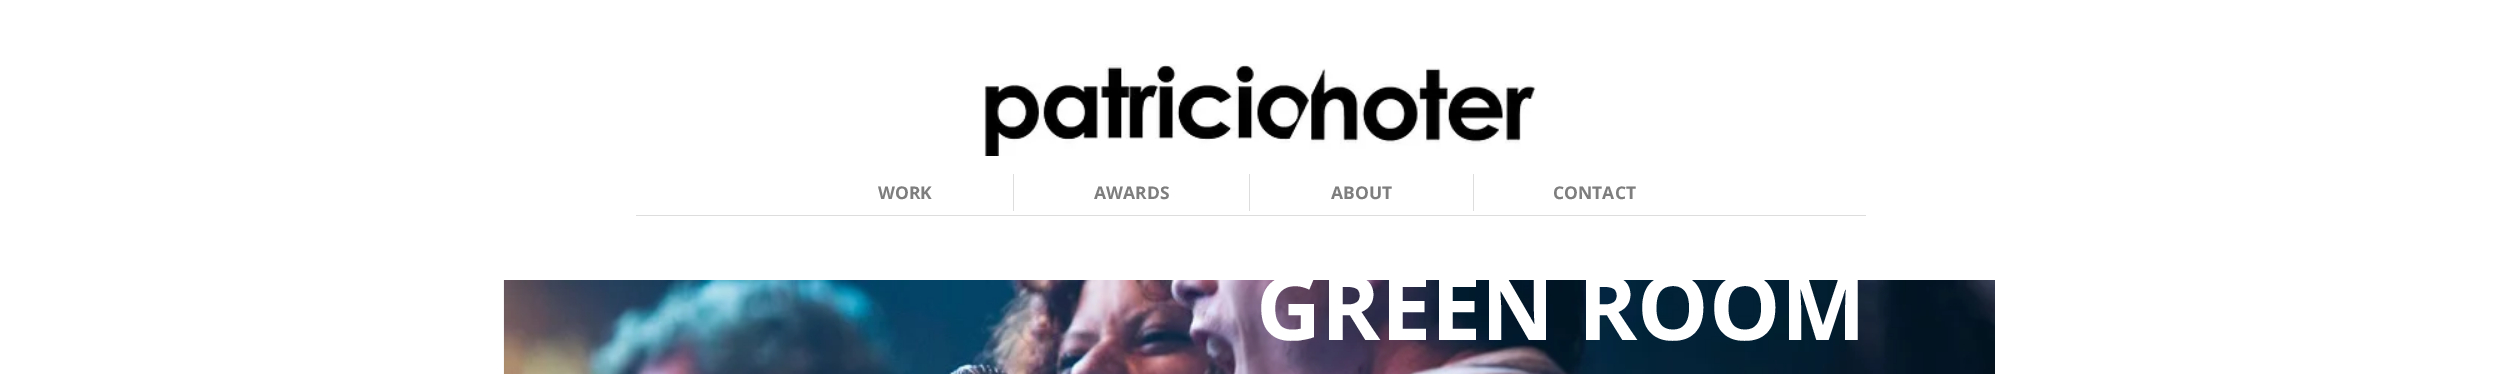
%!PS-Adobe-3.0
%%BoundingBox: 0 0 2497 374
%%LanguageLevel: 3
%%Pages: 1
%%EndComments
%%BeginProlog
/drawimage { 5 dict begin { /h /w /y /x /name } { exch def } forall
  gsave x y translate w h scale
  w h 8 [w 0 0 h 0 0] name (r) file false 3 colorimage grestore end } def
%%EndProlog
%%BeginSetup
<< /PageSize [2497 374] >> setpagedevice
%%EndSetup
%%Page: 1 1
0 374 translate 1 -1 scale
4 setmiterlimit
1 setgray
0 0 2497 374 rectfill
(images/1.raw) 984 64 552 92 drawimage
0.867 setgray
1013 174 1 37 rectfill
1249 174 1 37 rectfill
1473 174 1 37 rectfill
636 215 1230 1 rectfill
(images/2.raw) 503 280 1492 94 drawimage
/OpenSans-Bold [17.5 0 0 -17.5 0 0] selectfont
0.498 0.494 0.494 setrgbcolor
878 199 moveto (WORK) show
1094 199 moveto (AWARDS) show
1331 199 moveto (ABOUT) show
1553 199 moveto (CONTACT) show
/OpenSans-Bold [90 0 0 -90 0 0] selectfont
1 setgray
1256 340 moveto (GREEN ROOM) show
showpage
%%EOF
